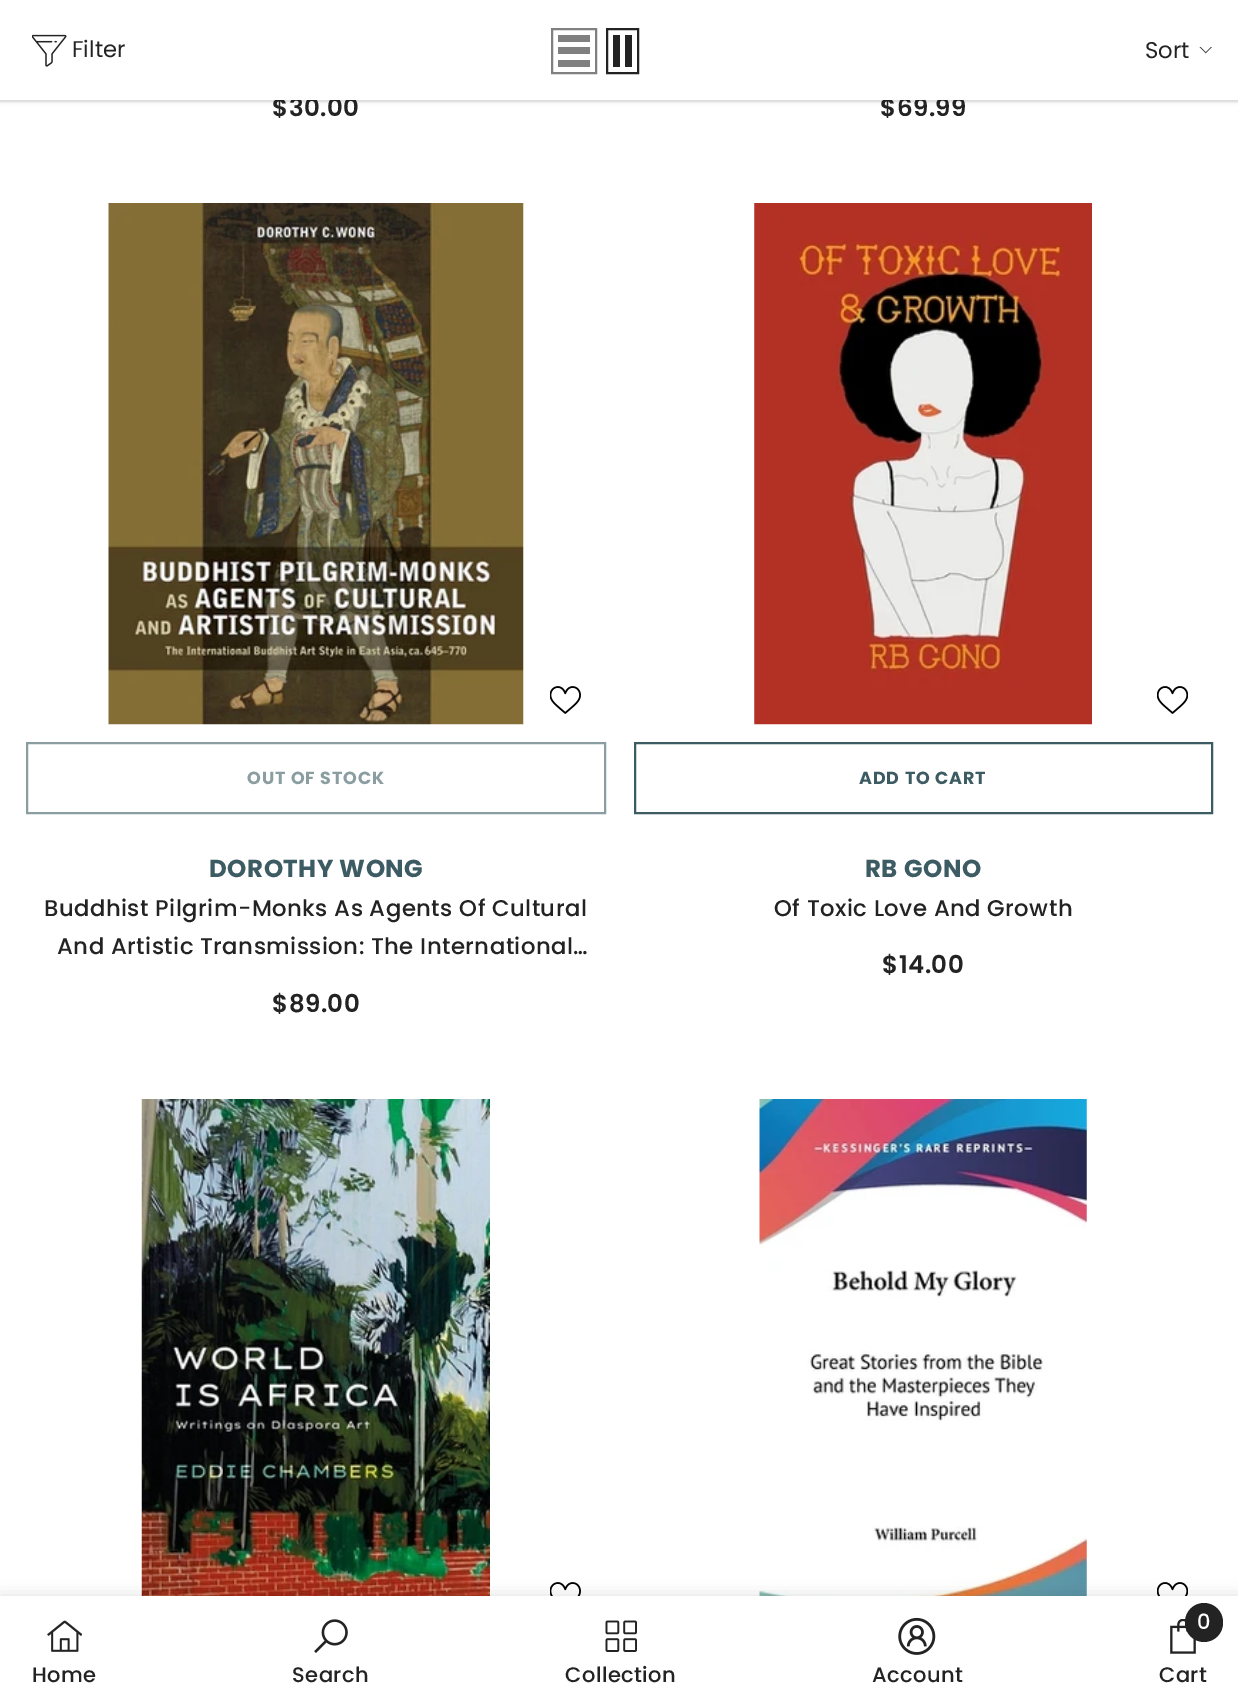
%!PS-Adobe-3.0
%%BoundingBox: 0 0 1238 1704
%%LanguageLevel: 3
%%Pages: 1
%%EndComments
%%BeginProlog
/setalpha { dup .setfillconstantalpha .setstrokeconstantalpha } def
/rrect { 5 dict begin { /r /h /w /y /x } { exch def } forall
  x r add y moveto x w add y 2 copy h add r arct x w add y h add x 1 index r arct
  x y h add x y r arct x y 2 copy exch w add exch r arct closepath end } def
/softshadow { 12 dict begin { /a /b /q /h /w /y /x } { exch def } forall gsave /was 0 def
  9 -2 -9 { dup b mul 4 div /e exch def 1 sub .425 mul 2.718 exch exp 1 add a .99 .min exch div /now exch def
    1 1 now sub 1 was sub div sub setalpha /was now def
    w h .min e 2 mul add 0 gt { x e sub y e sub w e 2 mul add h e 2 mul add
      q e add b .6 mul add w h .min 2 div e add .min 0 .max rrect fill } if } for grestore end } def
/drawimage { 5 dict begin { /h /w /y /x /name } { exch def } forall
  gsave x y translate w h scale
  w h 8 [w 0 0 h 0 0] name (r) file false 3 colorimage grestore end } def
%%EndProlog
%%BeginSetup
<< /PageSize [1238 1704] /PageUsesTransparency true >> setpagedevice
%%EndSetup
%%Page: 1 1
0 .pushpdf14devicefilter
0 1704 translate 1 -1 scale
4 setmiterlimit
1 setgray
0 0 1238 1704 rectfill
0 setgray
0 2 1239 100 0 2 0.1 softshadow
(images/3.raw) 108 203 416 522 drawimage
(images/4.raw) 550 686 31 28 drawimage
0.541 0.616 0.631 setrgbcolor
2 setlinewidth
27 743 578 70 rectstroke
(images/5.raw) 754 203 338 522 drawimage
(images/6.raw) 1157 686 31 28 drawimage
0.235 0.357 0.388 setrgbcolor
635 743 577 70 rectstroke
(images/7.raw) 141 1099 349 497 drawimage
(images/8.raw) 550 1582 31 14 drawimage
(images/9.raw) 759 1099 328 497 drawimage
(images/10.raw) 1157 1582 31 14 drawimage
0 setgray
0 1596 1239 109 0 8 0.12 softshadow
1 setgray
0 1596 1238 108 rectfill
(images/11.raw) 47 1620 35 32 drawimage
(images/12.raw) 314 1619 34 34 drawimage
(images/13.raw) 605 1620 32 32 drawimage
(images/14.raw) 898 1617 38 38 drawimage
(images/15.raw) 1170 1619 26 35 drawimage
0.137 setgray
1185 1603 38 39 19 rrect fill
/Poppins-SemiBold [24.5 0 0 -24.5 0 0] selectfont
272 116 moveto 0.5 0 ($30.00) ashow
880 116 moveto 0.5 0 ($69.99) ashow
0.06 setalpha
0 setgray
-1 -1 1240 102 rectstroke
1 setalpha
1 setgray
0 0 1238 100 rectfill
0.137 setgray
607 29 31 44 rectstroke
613 35 7 32 rectfill
625 35 7 32 rectfill
0.502 setgray
552 29 44 44 rectstroke
558 35 32 7 rectfill
558 47 32 7 rectfill
558 60 32 7 rectfill
(images/2.raw) 1199 47 13 7 drawimage
/Poppins-Regular [22.75 0 0 -22.75 0 0] selectfont
0.137 setgray
1145 58 moveto (Sort) show
(images/1.raw) 32 34 35 33 drawimage
72 57 moveto (Filter) show
/Poppins-Bold [17.5 0 0 -17.5 0 0] selectfont
0.541 0.616 0.631 setrgbcolor
247 784 moveto 0.9 0 (OUT OF STOCK) ashow
/Poppins-Bold [24.5 0 0 -24.5 0 0] selectfont
0.235 0.357 0.388 setrgbcolor
209 877 moveto 0.5 0 (DOROTHY WONG) ashow
/Poppins-Medium [22.75 0 0 -22.75 0 0] selectfont
0.137 setgray
44 916 moveto 0.45 0 (Buddhist Pilgrim-Monks As Agents Of Cultural) ashow
57 954 moveto 0.45 0 (And Artistic Transmission: The International…) ashow
/Poppins-SemiBold [24.5 0 0 -24.5 0 0] selectfont
272 1012 moveto 0.5 0 ($89.00) ashow
/Poppins-Bold [17.5 0 0 -17.5 0 0] selectfont
0.235 0.357 0.388 setrgbcolor
859 784 moveto 0.9 0 (ADD TO CART) ashow
/Poppins-Bold [24.5 0 0 -24.5 0 0] selectfont
865 877 moveto 0.5 0 (RB GONO) ashow
/Poppins-Medium [22.75 0 0 -22.75 0 0] selectfont
0.137 setgray
774 916 moveto 0.45 0 (Of Toxic Love And Growth) ashow
/Poppins-SemiBold [24.5 0 0 -24.5 0 0] selectfont
882 973 moveto 0.5 0 ($14.00) ashow
/Poppins-Medium [21 0 0 -21 0 0] selectfont
32 1682 moveto 0.45 0 (Home) ashow
292 1682 moveto 0.45 0 (Search) ashow
565 1682 moveto 0.45 0 (Collection) ashow
872 1682 moveto 0.45 0 (Account) ashow
1 setgray
1197 1629 moveto (0) show
0.137 setgray
1159 1682 moveto 0.45 0 (Cart) ashow
.poppdf14devicefilter showpage
%%EOF
